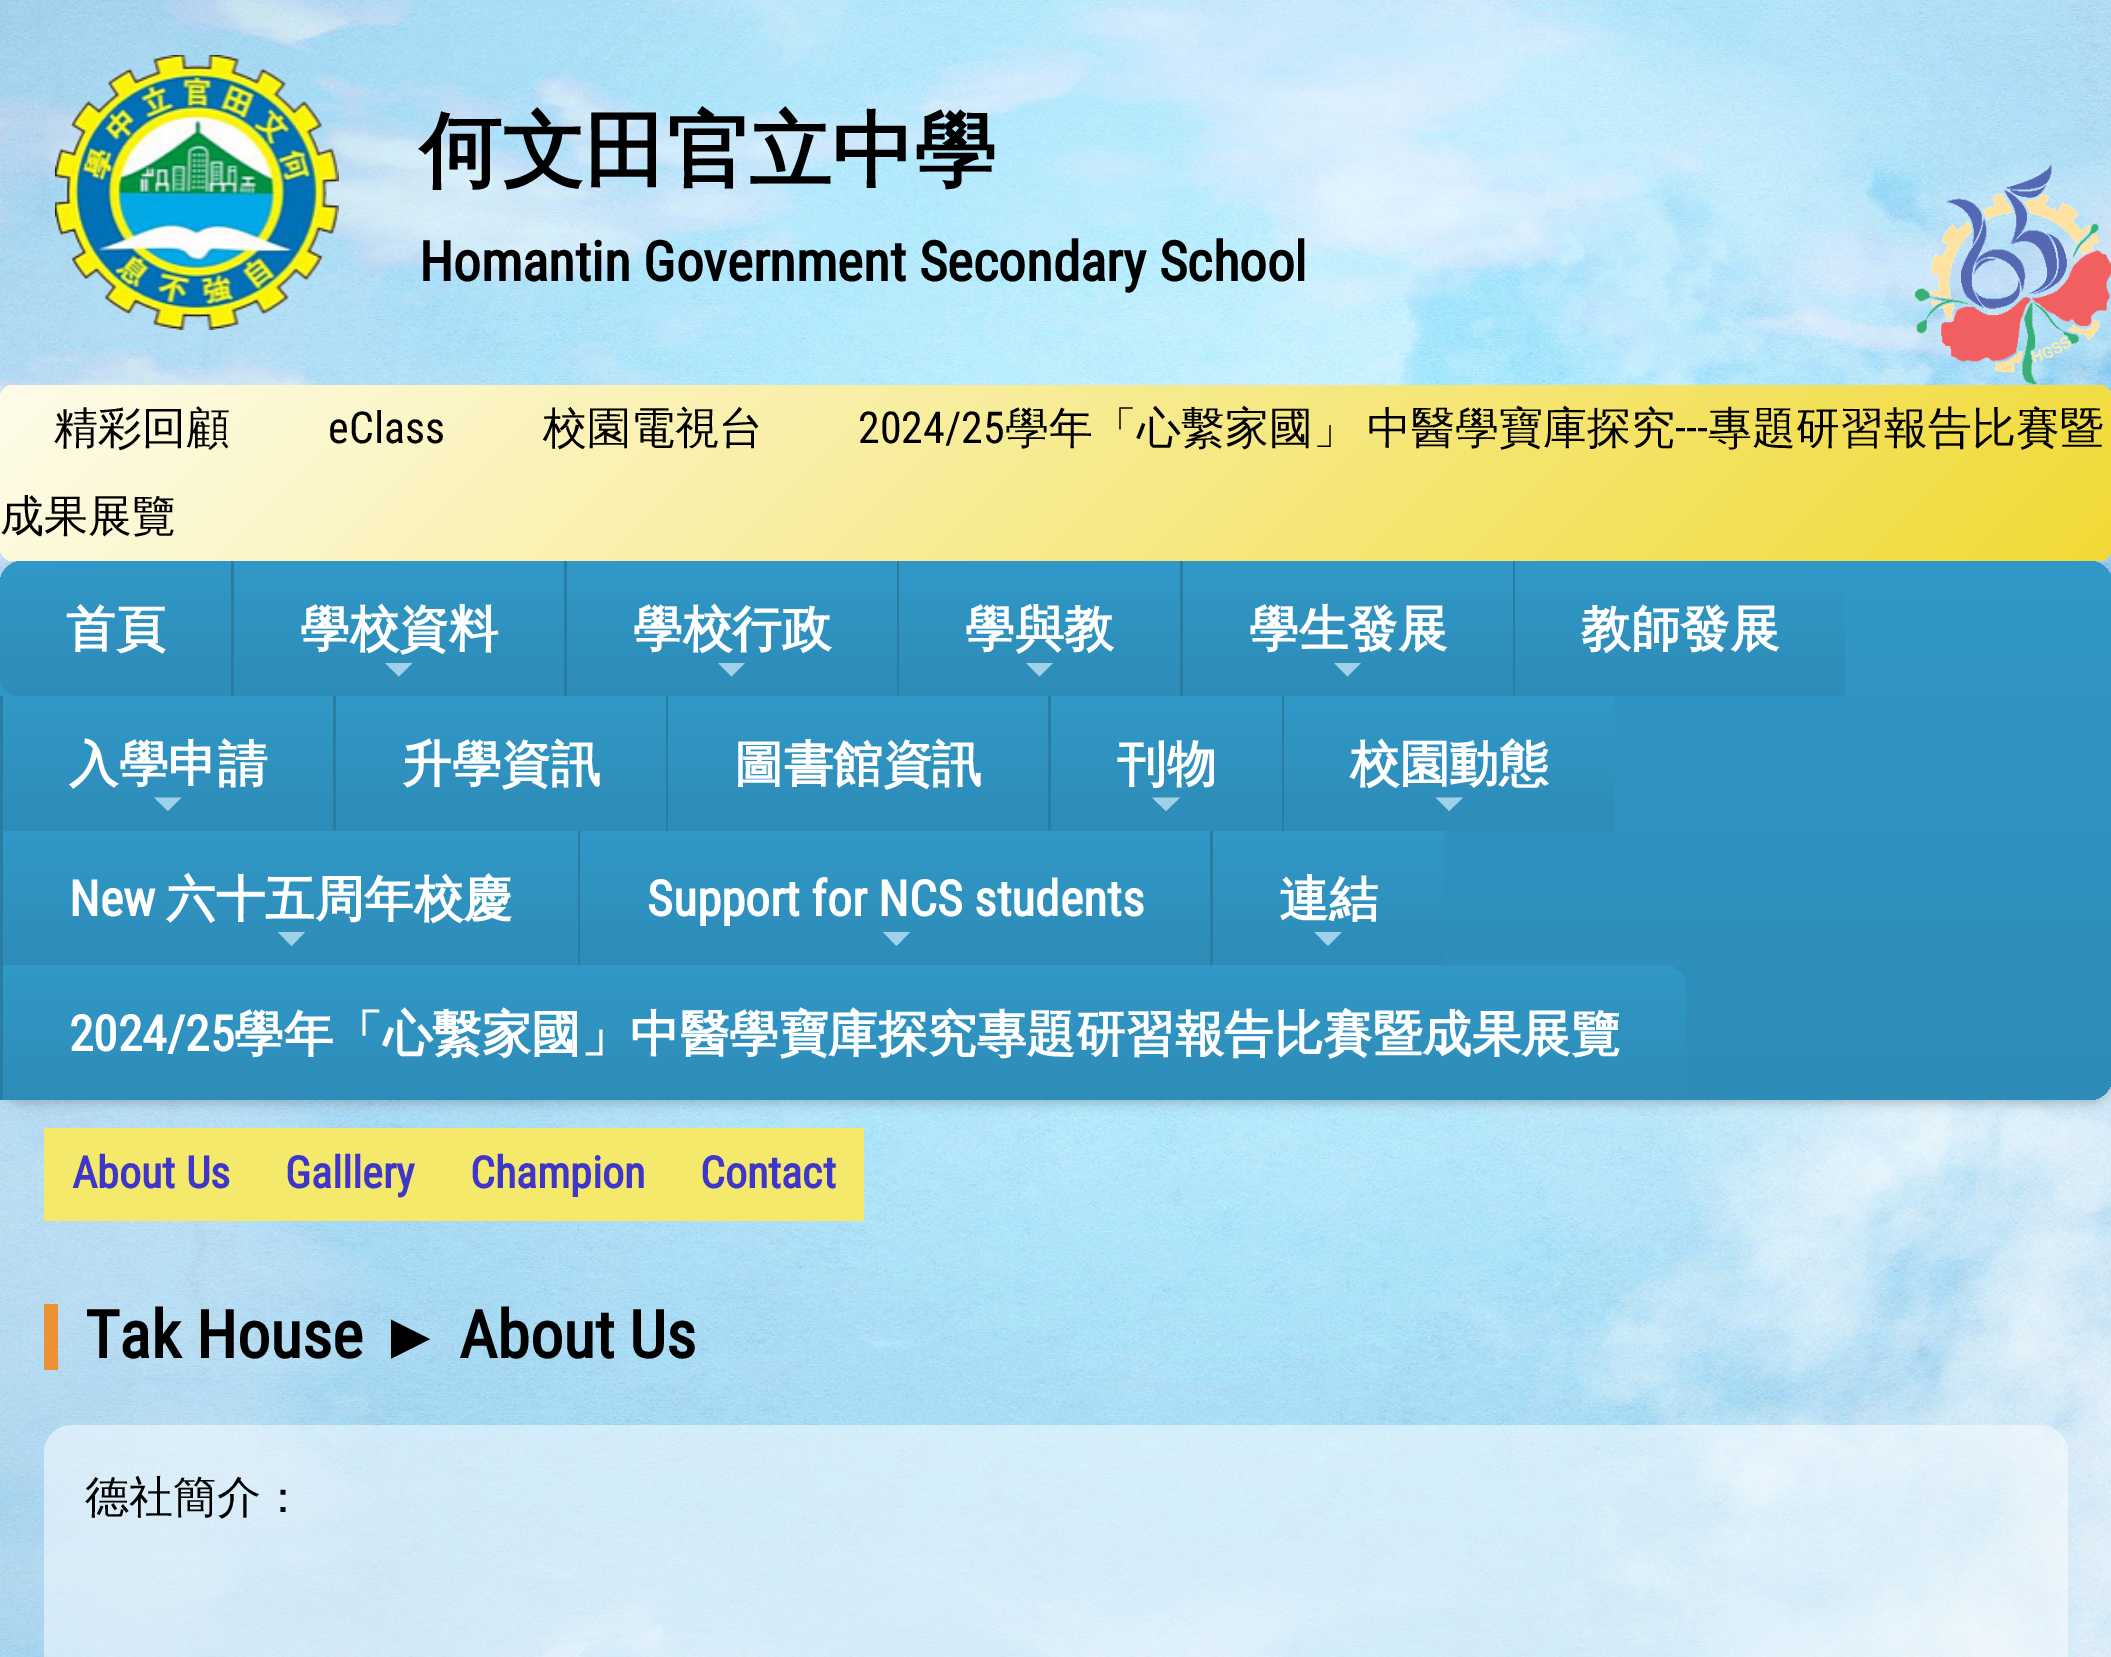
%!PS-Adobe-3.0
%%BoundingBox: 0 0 2111 1657
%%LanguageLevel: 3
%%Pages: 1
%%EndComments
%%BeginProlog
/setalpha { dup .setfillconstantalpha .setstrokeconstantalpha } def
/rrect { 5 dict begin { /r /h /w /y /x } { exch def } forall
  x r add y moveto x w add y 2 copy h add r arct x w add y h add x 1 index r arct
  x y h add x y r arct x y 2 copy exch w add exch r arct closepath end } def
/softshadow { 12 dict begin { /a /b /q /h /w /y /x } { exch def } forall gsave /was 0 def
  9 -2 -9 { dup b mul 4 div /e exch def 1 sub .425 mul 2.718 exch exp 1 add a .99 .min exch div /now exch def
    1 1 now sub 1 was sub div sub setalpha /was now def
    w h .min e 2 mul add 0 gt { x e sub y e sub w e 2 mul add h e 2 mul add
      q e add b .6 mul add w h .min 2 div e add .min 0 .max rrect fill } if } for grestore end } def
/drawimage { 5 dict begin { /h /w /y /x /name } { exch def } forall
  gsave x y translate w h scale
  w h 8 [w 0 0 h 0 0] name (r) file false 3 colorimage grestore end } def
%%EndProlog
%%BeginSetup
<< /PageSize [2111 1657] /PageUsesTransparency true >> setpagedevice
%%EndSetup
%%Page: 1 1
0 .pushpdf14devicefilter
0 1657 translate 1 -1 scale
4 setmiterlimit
1 setgray
0 0 2111 1657 rectfill
(images/1.raw) 0 0 2111 1657 drawimage
(images/2.raw) 55 55 284 275 drawimage
(images/3.raw) 1914 165 197 220 drawimage
0 setgray
0 564 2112 539 22 5.5 0.2 softshadow
gsave 0 385 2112 176 14 rrect clip newpath
<< /ShadingType 2 /ColorSpace /DeviceRGB /Coords [484 -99 1628 1045] /Extend [true true] /Function << /FunctionType 2 /Domain [0 1] /C0 [0.996 0.988 0.918] /C1 [0.945 0.855 0.212] /N 1 >> >> shfill grestore
gsave 0 561 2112 539 22 rrect clip newpath
<< /ShadingType 2 /ColorSpace /DeviceRGB /Coords [1056 561 1056 1100] /Extend [true true] /Function << /FunctionType 2 /Domain [0 1] /C0 [0.192 0.596 0.78] /C1 [0.18 0.549 0.722] /N 1 >> >> shfill grestore
gsave newpath 22 561 moveto 231 561 lineto 231 696 lineto 22 696 lineto 10 696 0 686 0 674 curveto 0 583 lineto 0 571 10 561 22 561 curveto closepath clip newpath
<< /ShadingType 2 /ColorSpace /DeviceRGB /Coords [116 561 116 696] /Extend [true true] /Function << /FunctionType 2 /Domain [0 1] /C0 [0.192 0.596 0.78] /C1 [0.18 0.549 0.722] /N 1 >> >> shfill grestore
0.161 0.486 0.635 setrgbcolor
231 561 3 135 rectfill
gsave newpath 234 593 moveto 564 593 lineto 564 696 lineto 234 696 lineto closepath clip newpath
<< /ShadingType 2 /ColorSpace /DeviceRGB /Coords [399 561 399 696] /Extend [true true] /Function << /FunctionType 2 /Domain [0 1] /C0 [0.192 0.596 0.78] /C1 [0.18 0.549 0.722] /N 1 >> >> shfill grestore
0.631 0.82 0.91 setrgbcolor
newpath 385 663 moveto 412.5 663 lineto 399 676.5 lineto closepath fill
0.161 0.486 0.635 setrgbcolor
564 561 3 135 rectfill
gsave newpath 567 593 moveto 897 593 lineto 897 696 lineto 567 696 lineto closepath clip newpath
<< /ShadingType 2 /ColorSpace /DeviceRGB /Coords [732 561 732 696] /Extend [true true] /Function << /FunctionType 2 /Domain [0 1] /C0 [0.192 0.596 0.78] /C1 [0.18 0.549 0.722] /N 1 >> >> shfill grestore
0.631 0.82 0.91 setrgbcolor
newpath 718 663 moveto 745 663 lineto 731.5 676.5 lineto closepath fill
0.161 0.486 0.635 setrgbcolor
897 561 2 135 rectfill
gsave newpath 899 593 moveto 1180 593 lineto 1180 696 lineto 899 696 lineto closepath clip newpath
<< /ShadingType 2 /ColorSpace /DeviceRGB /Coords [1040 561 1040 696] /Extend [true true] /Function << /FunctionType 2 /Domain [0 1] /C0 [0.192 0.596 0.78] /C1 [0.18 0.549 0.722] /N 1 >> >> shfill grestore
0.631 0.82 0.91 setrgbcolor
newpath 1026 663 moveto 1053 663 lineto 1039.5 676.5 lineto closepath fill
0.161 0.486 0.635 setrgbcolor
1180 561 3 135 rectfill
gsave newpath 1183 593 moveto 1513 593 lineto 1513 696 lineto 1183 696 lineto closepath clip newpath
<< /ShadingType 2 /ColorSpace /DeviceRGB /Coords [1348 561 1348 696] /Extend [true true] /Function << /FunctionType 2 /Domain [0 1] /C0 [0.192 0.596 0.78] /C1 [0.18 0.549 0.722] /N 1 >> >> shfill grestore
0.631 0.82 0.91 setrgbcolor
newpath 1334 663 moveto 1361 663 lineto 1347.5 676.5 lineto closepath fill
0.161 0.486 0.635 setrgbcolor
1513 561 2 135 rectfill
gsave newpath 1515 593 moveto 1845 593 lineto 1845 696 lineto 1515 696 lineto closepath clip newpath
<< /ShadingType 2 /ColorSpace /DeviceRGB /Coords [1680 561 1680 696] /Extend [true true] /Function << /FunctionType 2 /Domain [0 1] /C0 [0.192 0.596 0.78] /C1 [0.18 0.549 0.722] /N 1 >> >> shfill grestore
0 696 3 404 rectfill
gsave newpath 3 696 moveto 333 696 lineto 333 831 lineto 3 831 lineto closepath clip newpath
<< /ShadingType 2 /ColorSpace /DeviceRGB /Coords [168 696 168 831] /Extend [true true] /Function << /FunctionType 2 /Domain [0 1] /C0 [0.192 0.596 0.78] /C1 [0.18 0.549 0.722] /N 1 >> >> shfill grestore
0.631 0.82 0.91 setrgbcolor
newpath 154 797.5 moveto 181.5 797.5 lineto 168 811 lineto closepath fill
0.161 0.486 0.635 setrgbcolor
333 696 3 135 rectfill
gsave newpath 336 696 moveto 666 696 lineto 666 831 lineto 336 831 lineto closepath clip newpath
<< /ShadingType 2 /ColorSpace /DeviceRGB /Coords [501 696 501 831] /Extend [true true] /Function << /FunctionType 2 /Domain [0 1] /C0 [0.192 0.596 0.78] /C1 [0.18 0.549 0.722] /N 1 >> >> shfill grestore
666 696 2 135 rectfill
gsave newpath 668 696 moveto 1048 696 lineto 1048 831 lineto 668 831 lineto closepath clip newpath
<< /ShadingType 2 /ColorSpace /DeviceRGB /Coords [858 696 858 831] /Extend [true true] /Function << /FunctionType 2 /Domain [0 1] /C0 [0.192 0.596 0.78] /C1 [0.18 0.549 0.722] /N 1 >> >> shfill grestore
1048 696 3 135 rectfill
gsave newpath 1051 696 moveto 1282 696 lineto 1282 831 lineto 1051 831 lineto closepath clip newpath
<< /ShadingType 2 /ColorSpace /DeviceRGB /Coords [1166 696 1166 831] /Extend [true true] /Function << /FunctionType 2 /Domain [0 1] /C0 [0.192 0.596 0.78] /C1 [0.18 0.549 0.722] /N 1 >> >> shfill grestore
0.631 0.82 0.91 setrgbcolor
newpath 1152 797.5 moveto 1180 797.5 lineto 1166 811 lineto closepath fill
0.161 0.486 0.635 setrgbcolor
1282 696 2 135 rectfill
gsave newpath 1284 696 moveto 1614 696 lineto 1614 831 lineto 1284 831 lineto closepath clip newpath
<< /ShadingType 2 /ColorSpace /DeviceRGB /Coords [1449 696 1449 831] /Extend [true true] /Function << /FunctionType 2 /Domain [0 1] /C0 [0.192 0.596 0.78] /C1 [0.18 0.549 0.722] /N 1 >> >> shfill grestore
0.631 0.82 0.91 setrgbcolor
newpath 1435.5 797.5 moveto 1463 797.5 lineto 1449 811 lineto closepath fill
gsave newpath 3 831 moveto 578 831 lineto 578 965 lineto 3 965 lineto closepath clip newpath
<< /ShadingType 2 /ColorSpace /DeviceRGB /Coords [290 831 290 965] /Extend [true true] /Function << /FunctionType 2 /Domain [0 1] /C0 [0.192 0.596 0.78] /C1 [0.18 0.549 0.722] /N 1 >> >> shfill grestore
newpath 278 932 moveto 305 932 lineto 291.5 946 lineto closepath fill
0.161 0.486 0.635 setrgbcolor
578 831 2 134 rectfill
gsave newpath 580 831 moveto 1210 831 lineto 1210 965 lineto 580 965 lineto closepath clip newpath
<< /ShadingType 2 /ColorSpace /DeviceRGB /Coords [895 831 895 965] /Extend [true true] /Function << /FunctionType 2 /Domain [0 1] /C0 [0.192 0.596 0.78] /C1 [0.18 0.549 0.722] /N 1 >> >> shfill grestore
0.631 0.82 0.91 setrgbcolor
newpath 883 932 moveto 910 932 lineto 896.5 946 lineto closepath fill
0.161 0.486 0.635 setrgbcolor
1210 831 3 134 rectfill
gsave newpath 1213 831 moveto 1444 831 lineto 1444 965 lineto 1213 965 lineto closepath clip newpath
<< /ShadingType 2 /ColorSpace /DeviceRGB /Coords [1328 831 1328 965] /Extend [true true] /Function << /FunctionType 2 /Domain [0 1] /C0 [0.192 0.596 0.78] /C1 [0.18 0.549 0.722] /N 1 >> >> shfill grestore
0.631 0.82 0.91 setrgbcolor
newpath 1314.5 932 moveto 1342 932 lineto 1328 946 lineto closepath fill
gsave newpath 3 965 moveto 1664 965 lineto 1676 965 1686 975 1686 987 curveto 1686 1078 lineto 1686 1090 1676 1100 1664 1100 curveto 3 1100 lineto closepath clip newpath
<< /ShadingType 2 /ColorSpace /DeviceRGB /Coords [844 965 844 1100] /Extend [true true] /Function << /FunctionType 2 /Domain [0 1] /C0 [0.192 0.596 0.78] /C1 [0.18 0.549 0.722] /N 1 >> >> shfill grestore
0.957 0.914 0.416 setrgbcolor
44 1128 820 93 rectfill
0.922 0.573 0.204 setrgbcolor
44 1304 14 66 rectfill
0.5 setalpha
1 setgray
44 1425 2024 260 28 rrect fill
/WenQuanYiZenHei-Bold [82.5 0 0 -82.5 0 0] selectfont
1 setalpha
0 setgray
419 179 moveto (何文田官立中學) show
/RobotoCondensed-Bold [55 0 0 -55 0 0] selectfont
419 281 moveto (Homantin Government Secondary School) show
/WenQuanYiZenHei-Medium [44 0 0 -44 0 0] selectfont
54 443 moveto (精彩回顧) show
/RobotoCondensed-Regular [44 0 0 -44 0 0] selectfont
328 443 moveto (eClass) show
/WenQuanYiZenHei-Medium [44 0 0 -44 0 0] selectfont
543 443 moveto (校園電視台) show
/RobotoCondensed-Regular [44 0 0 -44 0 0] selectfont
858 443 moveto (2024/25) show
/WenQuanYiZenHei-Medium [44 0 0 -44 0 0] selectfont
1005 443 moveto -3 0 32 (學年「心繫家國」 中醫學寶庫探究) widthshow
/RobotoCondensed-Regular [44 0 0 -44 0 0] selectfont
1675 443 moveto (---) show
/WenQuanYiZenHei-Medium [44 0 0 -44 0 0] selectfont
1708 443 moveto (專題研習報告比賽暨) show
0 531 moveto (成果展覽) show
/WenQuanYiZenHei-Bold [49.5 0 0 -49.5 0 0] selectfont
1 setgray
66 646 moveto (首頁) show
300 646 moveto (學校資料) show
633 646 moveto (學校行政) show
965 646 moveto (學與教) show
1249 646 moveto (學生發展) show
1581 646 moveto (教師發展) show
69 781 moveto (入學申請) show
402 781 moveto (升學資訊) show
734 781 moveto (圖書館資訊) show
1117 781 moveto (刊物) show
1350 781 moveto (校園動態) show
/RobotoCondensed-Bold [49.5 0 0 -49.5 0 0] selectfont
69 916 moveto (New) show
/WenQuanYiZenHei-Bold [49.5 0 0 -49.5 0 0] selectfont
166 916 moveto (六十五周年校慶) show
/RobotoCondensed-Bold [49.5 0 0 -49.5 0 0] selectfont
647 916 moveto (Support for NCS students) show
/WenQuanYiZenHei-Bold [49.5 0 0 -49.5 0 0] selectfont
1279 916 moveto (連結) show
/RobotoCondensed-Bold [49.5 0 0 -49.5 0 0] selectfont
69 1051 moveto (2024/25) show
/WenQuanYiZenHei-Bold [49.5 0 0 -49.5 0 0] selectfont
234 1051 moveto (學年「心繫家國」中醫學寶庫探究專題研習報告比賽暨成果展覽) show
/RobotoCondensed-Bold [44 0 0 -44 0 0] selectfont
0.243 0.208 0.796 setrgbcolor
72 1188 moveto (About Us) show
285 1188 moveto (Galllery) show
470 1188 moveto (Champion) show
700 1188 moveto (Contact) show
/RobotoCondensed-Bold [66 0 0 -66 0 0] selectfont
0 setgray
85 1358 moveto (Tak House) show
/LiberationSans-Bold [66 0 0 -66 0 0] selectfont
378 1358 moveto (►) show
/RobotoCondensed-Bold [66 0 0 -66 0 0] selectfont
459 1358 moveto (About Us) show
/WenQuanYiZenHei-Medium [44 0 0 -44 0 0] selectfont
85 1512 moveto (德社簡介：) show
.poppdf14devicefilter showpage
%%EOF
